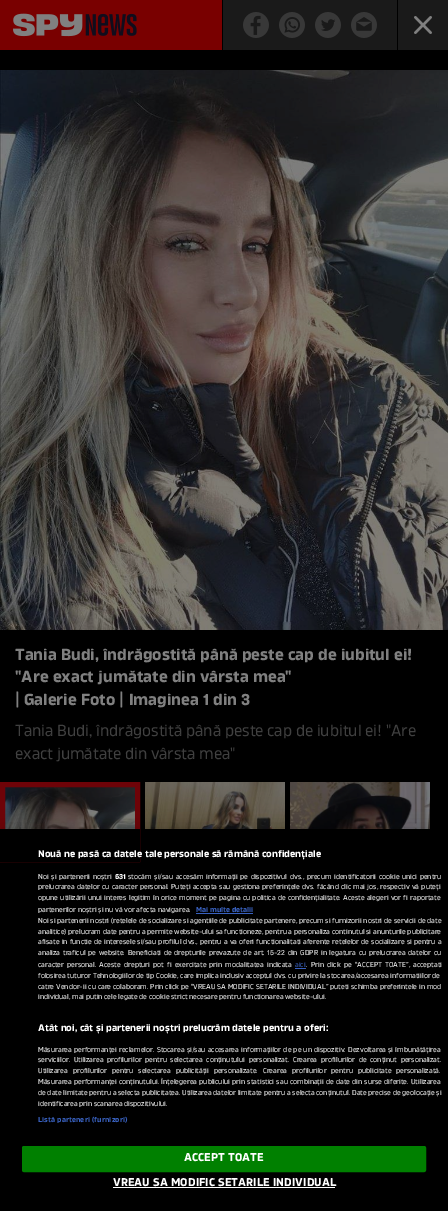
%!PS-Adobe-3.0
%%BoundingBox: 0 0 448 1211
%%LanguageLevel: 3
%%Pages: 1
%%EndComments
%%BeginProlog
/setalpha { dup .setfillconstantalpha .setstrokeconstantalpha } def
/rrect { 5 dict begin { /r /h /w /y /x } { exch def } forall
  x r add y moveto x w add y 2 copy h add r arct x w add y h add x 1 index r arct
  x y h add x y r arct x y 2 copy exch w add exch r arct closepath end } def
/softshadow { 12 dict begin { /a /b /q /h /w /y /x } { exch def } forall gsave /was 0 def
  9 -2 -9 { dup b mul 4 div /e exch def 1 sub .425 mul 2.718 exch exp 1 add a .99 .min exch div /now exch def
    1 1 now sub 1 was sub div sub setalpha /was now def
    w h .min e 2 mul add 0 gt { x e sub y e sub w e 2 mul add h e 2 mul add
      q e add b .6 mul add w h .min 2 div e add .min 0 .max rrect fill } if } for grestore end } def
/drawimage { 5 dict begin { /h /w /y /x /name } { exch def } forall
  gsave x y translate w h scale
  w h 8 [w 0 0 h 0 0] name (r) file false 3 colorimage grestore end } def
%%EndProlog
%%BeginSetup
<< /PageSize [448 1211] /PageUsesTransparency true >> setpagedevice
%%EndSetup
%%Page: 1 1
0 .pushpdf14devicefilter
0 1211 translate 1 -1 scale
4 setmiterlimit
0 setgray
0 0 448 1211 rectfill
0.475 0 0 setrgbcolor
0 0 222 50 rectfill
(images/1.raw) 13 13 124 24 drawimage
0.102 setgray
223 0 174 50 rectfill
(images/2.raw) 243 12 26 26 drawimage
(images/3.raw) 279 12 26 26 drawimage
(images/4.raw) 315 12 26 26 drawimage
(images/5.raw) 351 12 26 26 drawimage
398 0 50 50 rectfill
(images/6.raw) 414 16 18 18 drawimage
(images/7.raw) 0 70 448 560 drawimage
(images/8.raw) 5 787 130 42 drawimage
0.431 0.012 0.031 setrgbcolor
5 setlinewidth
2.5 784.5 135 75 rectstroke
(images/9.raw) 145 782 140 47 drawimage
(images/10.raw) 290 782 140 47 drawimage
0 setgray
0 829 448 382 0 9 0.2 softshadow
0 829 140 33 rectfill
0.22 0.376 0.745 setrgbcolor
196 913 57 1 rectfill
295 968 11 1 rectfill
0 0.502 0 setrgbcolor
22.5 1146.5 403 25 1.5 rrect gsave fill grestore
1 setlinewidth
stroke
1 setgray
113 1187 222 1 rectfill
/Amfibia-Bold [16 0 0 -16 0 0] selectfont
0.502 setgray
15 660 moveto (Tania Budi, îndrăgostită până peste cap de iubitul ei!) show
15 682 moveto ("Are exact jumătate din vârsta mea") show
15 705 moveto (| Galerie Foto | Imaginea 1 din 3) show
/Amfibia-Regular [16 0 0 -16 0 0] selectfont
0.251 setgray
15 736 moveto (Tania Budi, îndrăgostită până peste cap de iubitul ei! "Are) show
15 759 moveto (exact jumătate din vârsta mea") show
/Amfibia-Bold [9.6 0 0 -9.6 0 0] selectfont
1 setgray
38 857 moveto (Nouă ne pasă ca datele tale personale să rămână confidențiale) show
/Amfibia-Regular [7.2 0 0 -7.2 0 0] selectfont
38 879 moveto 1 0 32 (Noi și partenerii noștri) widthshow
/Amfibia-Bold [7.2 0 0 -7.2 0 0] selectfont
115 879 moveto (631) show
/Amfibia-Regular [7.2 0 0 -7.2 0 0] selectfont
128 879 moveto 1 0 32 (stocăm și/sau accesăm informații pe dispozitivul dvs., precum identificatorii cookie unici pentru) widthshow
38 889 moveto 0.6 0 32 (prelucrarea datelor cu caracter personal. Puteți accepta sau gestiona preferințele dvs. făcând clic mai jos, respectiv vă puteți) widthshow
38 900 moveto 0.6 0 32 (opune utilizării unui interes legitim în orice moment pe pagina cu politica de confidențialitate. Aceste alegeri vor fi raportate) widthshow
38 912 moveto (partenerilor noștri și nu vă vor afecta navigarea.) show
/Amfibia-Bold [7.2 0 0 -7.2 0 0] selectfont
0.22 0.376 0.745 setrgbcolor
196 912 moveto (Mai multe detalii) show
/Amfibia-Regular [7.2 0 0 -7.2 0 0] selectfont
1 setgray
38 923 moveto 0.2 0 32 (Noi si partenerii nostri \(retelele de socializare si agentiile de publicitate partenere, precum si furnizorii nostri de servicii de date) widthshow
38 934 moveto (analitice\) prelucram date pentru a permite website-ului sa functioneze, pentru a personaliza continutul si anunturile publicitare) show
38 944 moveto 0.5 0 32 (afisate in functie de interesele si/sau profilul dvs., pentru a va oferi functionalitati aferente retelelor de socializare si pentru a) widthshow
38 955 moveto 1.1 0 32 (analiza traficul pe website. Beneficiati de drepturile prevazute de art. 15-22 din GDPR in legatura cu prelucrarea datelor cu) widthshow
38 967 moveto 1.5 0 32 (caracter personal. Aceste drepturi pot fi exercitate prin modalitatea indicata) widthshow
0.22 0.376 0.745 setrgbcolor
295 967 moveto (aici) show
1 setgray
306 967 moveto 1.5 0 32 (. Prin click pe “ACCEPT TOATE”, acceptati) widthshow
38 978 moveto 0.1 0 32 (folosirea tuturor Tehnologiilor de tip Cookie, care implica inclusiv acceptul dvs. cu privire la stocarea/accesarea informatiilor de) widthshow
38 989 moveto 0.25 0 32 (catre Vendor-ii cu care colaboram. Prin click pe “VREAU SA MODIFIC SETARILE INDIVIDUAL” puteti schimba preferintele in mod) widthshow
38 999 moveto (individual, mai putin cele legate de cookie strict necesare pentru functionarea website-ului.) show
/Amfibia-Bold [9.6 0 0 -9.6 0 0] selectfont
38 1031 moveto (Atât noi, cât și partenerii noștri prelucrăm datele pentru a oferi:) show
/Amfibia-Regular [7.2 0 0 -7.2 0 0] selectfont
38 1052 moveto 0.5 0 32 (Măsurarea performanței reclamelor. Stocarea și/sau accesarea informațiilor de pe un dispozitiv. Dezvoltarea și îmbunătățirea) widthshow
38 1062 moveto 2 0 32 (serviciilor. Utilizarea profilurilor pentru selectarea conținutului personalizat. Crearea profilurilor de conținut personalizat.) widthshow
38 1073 moveto 3.25 0 32 (Utilizarea profilurilor pentru selectarea publicității personalizate. Crearea profilurilor pentru publicitate personalizată.) widthshow
38 1084 moveto 0.6 0 32 (Măsurarea performanței conținutului. Înțelegerea publicului prin statistici sau combinații de date din surse diferite. Utilizarea) widthshow
38 1095 moveto (de date limitate pentru a selecta publicitatea. Utilizarea datelor limitate pentru a selecta conținutul. Date precise de geolocație și) show
38 1106 moveto (identificarea prin scanarea dispozitivului.) show
/Amfibia-Bold [7.2 0 0 -7.2 0 0] selectfont
0.22 0.376 0.745 setrgbcolor
38 1122 moveto 0.1 0 (Listă parteneri \(furnizori\)) ashow
/Amfibia-Bold [11.25 0 0 -11.25 0 0] selectfont
1 setgray
184 1161 moveto 0.1 0 (ACCEPT TOATE) ashow
113 1186 moveto 0.1 0 (VREAU SA MODIFIC SETARILE INDIVIDUAL) ashow
.poppdf14devicefilter showpage
%%EOF
